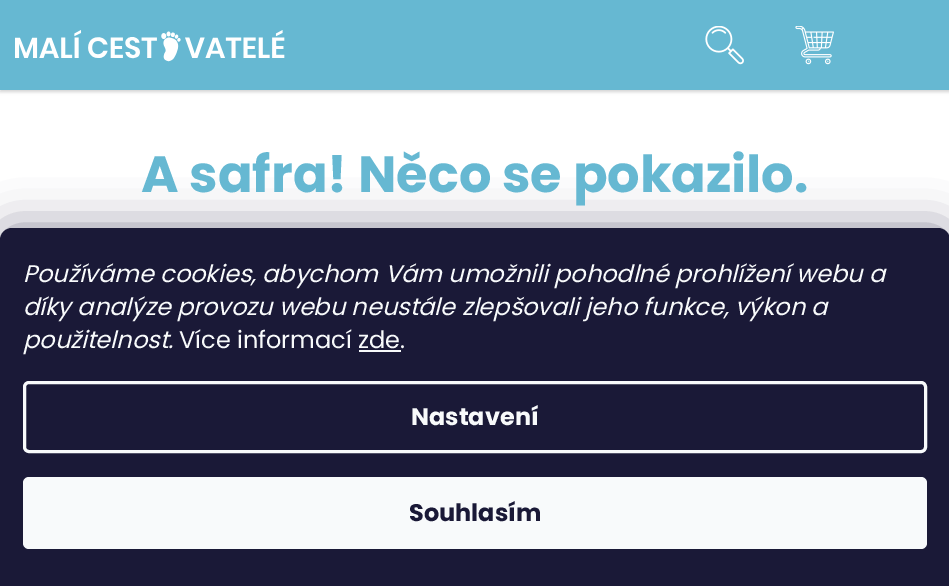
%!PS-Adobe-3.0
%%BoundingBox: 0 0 949 586
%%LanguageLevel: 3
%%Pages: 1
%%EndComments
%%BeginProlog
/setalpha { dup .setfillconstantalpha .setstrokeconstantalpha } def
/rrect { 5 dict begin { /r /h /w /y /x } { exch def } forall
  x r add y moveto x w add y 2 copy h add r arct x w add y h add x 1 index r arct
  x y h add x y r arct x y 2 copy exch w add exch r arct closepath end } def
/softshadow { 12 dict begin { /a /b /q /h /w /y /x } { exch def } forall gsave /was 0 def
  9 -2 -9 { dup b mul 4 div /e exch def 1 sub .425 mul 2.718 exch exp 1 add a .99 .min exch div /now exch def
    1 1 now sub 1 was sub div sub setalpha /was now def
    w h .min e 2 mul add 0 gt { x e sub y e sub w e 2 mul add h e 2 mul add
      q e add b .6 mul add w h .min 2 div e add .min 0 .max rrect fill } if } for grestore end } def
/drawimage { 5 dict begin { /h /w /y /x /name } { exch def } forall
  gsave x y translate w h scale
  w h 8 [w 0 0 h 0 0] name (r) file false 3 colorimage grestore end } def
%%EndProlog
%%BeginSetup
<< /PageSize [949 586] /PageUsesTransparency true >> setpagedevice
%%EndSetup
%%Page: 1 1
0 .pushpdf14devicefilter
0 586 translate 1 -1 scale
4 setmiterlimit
1 setgray
0 0 949 586 rectfill
0 setgray
0 2 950 90 0 1.5 0.16 softshadow
0.4 0.722 0.824 setrgbcolor
0 0 949 90 rectfill
(images/1.raw) 15 30 270 32 drawimage
(images/2.raw) 705 26 39 39 drawimage
(images/3.raw) 795 26 39 39 drawimage
0.106 0.098 0.224 setrgbcolor
0 228 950 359 12 22.5 0.5 softshadow
0.102 0.098 0.216 setrgbcolor
newpath 12 228 moveto 938 228 lineto 944.5 228 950 233.5 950 240 curveto 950 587 lineto 0 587 lineto 0 240 lineto 0 233.5 5.5 228 12 228 curveto closepath fill
0.973 0.98 0.984 setrgbcolor
359 350 42 2 rectfill
3 setlinewidth
24.5 382.5 901 69 4.5 rrect stroke
23 477 904 72 6 rrect fill
/Poppins-Bold [51 0 0 -51 0 0] selectfont
0.4 0.722 0.824 setrgbcolor
141 192 moveto (A safra! Něco se pokazilo.) show
/Poppins-Italic [24 0 0 -24 0 0] selectfont
0.973 0.98 0.984 setrgbcolor
23 282 moveto (Používáme cookies, abychom Vám umožnili pohodlné prohlížení webu a) show
23 315 moveto (díky analýze provozu webu neustále zlepšovali jeho funkce, výkon a) show
23 348 moveto (použitelnost.) show
/Poppins-Regular [24 0 0 -24 0 0] selectfont
179 348 moveto (Více informací zde.) show
/Poppins-Bold [24 0 0 -24 0 0] selectfont
411 425 moveto (Nastavení) show
0.102 0.098 0.216 setrgbcolor
409 521 moveto (Souhlasím) show
.poppdf14devicefilter showpage
%%EOF
